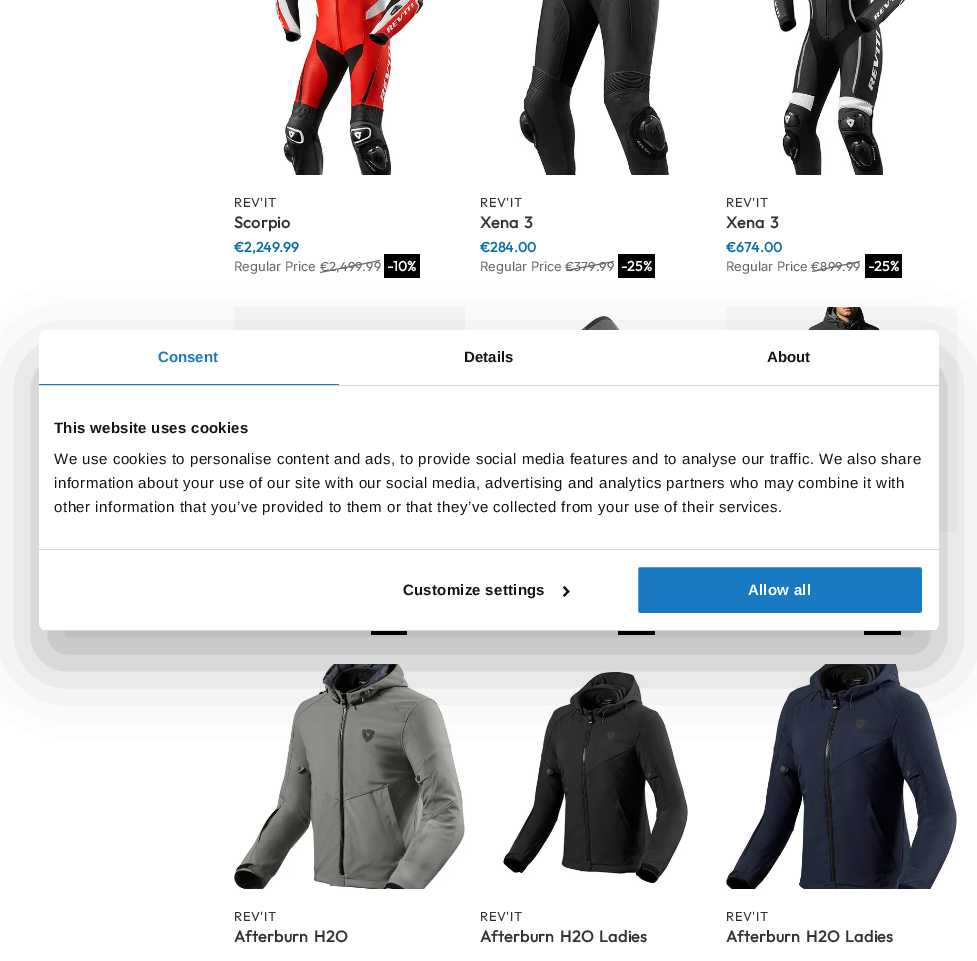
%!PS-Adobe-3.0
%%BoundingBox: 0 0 977 961
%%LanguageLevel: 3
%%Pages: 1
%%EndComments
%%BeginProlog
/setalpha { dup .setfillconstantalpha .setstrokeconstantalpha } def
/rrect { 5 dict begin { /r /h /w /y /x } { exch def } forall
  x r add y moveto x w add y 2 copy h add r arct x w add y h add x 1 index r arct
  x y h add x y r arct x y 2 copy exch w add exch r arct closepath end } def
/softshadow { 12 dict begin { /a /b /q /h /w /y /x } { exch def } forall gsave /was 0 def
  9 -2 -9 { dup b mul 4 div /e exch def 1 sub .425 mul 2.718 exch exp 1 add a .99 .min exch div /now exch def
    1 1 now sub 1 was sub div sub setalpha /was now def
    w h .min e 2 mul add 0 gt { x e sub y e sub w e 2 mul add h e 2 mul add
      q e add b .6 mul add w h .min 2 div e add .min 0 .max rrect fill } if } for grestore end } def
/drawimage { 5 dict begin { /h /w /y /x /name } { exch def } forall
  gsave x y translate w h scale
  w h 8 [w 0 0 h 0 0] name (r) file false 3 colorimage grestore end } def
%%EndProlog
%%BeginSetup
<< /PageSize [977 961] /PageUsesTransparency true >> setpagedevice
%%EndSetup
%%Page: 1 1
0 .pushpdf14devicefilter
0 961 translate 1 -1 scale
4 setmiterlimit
1 setgray
0 0 977 961 rectfill
(images/1.raw) 275 0 149 175 drawimage
0.4 setgray
newpath 320 272 moveto 380 260 lineto 380 261 lineto 320 273 lineto closepath fill
0 setgray
384 254 36 24 rectfill
(images/2.raw) 518 0 151 175 drawimage
0.4 setgray
newpath 566 270 moveto 614 261 lineto 614 262 lineto 566 271 lineto closepath fill
0 setgray
618 254 37 24 rectfill
(images/3.raw) 773 0 132 175 drawimage
0.4 setgray
newpath 812 271 moveto 860 261 lineto 860 262 lineto 812 272 lineto closepath fill
0 setgray
865 254 37 24 rectfill
(images/4.raw) 234 307 231 23 drawimage
371 631 36 4 rectfill
(images/5.raw) 480 316 231 14 drawimage
618 631 37 4 rectfill
(images/6.raw) 726 307 231 225 drawimage
864 631 37 4 rectfill
(images/7.raw) 234 664 231 225 drawimage
(images/8.raw) 503 671 185 213 drawimage
(images/9.raw) 726 664 231 225 drawimage
39 362 900 301 8 34 0.3 softshadow
1 setgray
39 330 900 301 8 rrect fill
0.839 setgray
39 385 900 1 rectfill
0.098 0.475 0.765 setrgbcolor
39 384 300 1 rectfill
0.839 setgray
39 549 900 1 rectfill
gsave
39 330 900 301 8 rrect clip newpath
39 630 900 1 rectfill
grestore
0.078 setgray
newpath 564.5 586 moveto 569.5 591.5 lineto 568 593 lineto 563 587.5 lineto closepath fill
newpath 568 590 moveto 569.5 591.5 lineto 564.5 597 lineto 563 595.5 lineto closepath fill
0.098 0.475 0.765 setrgbcolor
637 566 286 48 3 rrect gsave fill grestore
1 setgray
2 setlinewidth
stroke
/Outfit-Regular [13 0 0 -13 0 0] selectfont
0.2 setgray
234 207 moveto 0.5 0 (REV'IT) ashow
/Outfit-Bold [16 0 0 -16 0 0] selectfont
234 228 moveto 0.3 0 (Scorpio) ashow
/Outfit-Bold [14 0 0 -14 0 0] selectfont
0.039 0.431 0.655 setrgbcolor
234 252 moveto (€2,249.99) show
/Inter-Regular [13 0 0 -13 0 0] selectfont
0.4 setgray
234 271 moveto (Regular Price) show
/Outfit-Regular [13 0 0 -13 0 0] selectfont
320 271 moveto (€2,499.99) show
/Outfit-Bold [14 0 0 -14 0 0] selectfont
1 setgray
387 271 moveto (-10%) show
/Outfit-Regular [13 0 0 -13 0 0] selectfont
0.2 setgray
480 207 moveto 0.5 0 (REV'IT) ashow
/Outfit-Bold [16 0 0 -16 0 0] selectfont
480 228 moveto 1 0 32 0.3 0 (Xena 3) awidthshow
/Outfit-Bold [14 0 0 -14 0 0] selectfont
0.039 0.431 0.655 setrgbcolor
480 252 moveto (€284.00) show
/Inter-Regular [13 0 0 -13 0 0] selectfont
0.4 setgray
480 271 moveto (Regular Price) show
/Outfit-Regular [13 0 0 -13 0 0] selectfont
565 271 moveto (€379.99) show
/Outfit-Bold [14 0 0 -14 0 0] selectfont
1 setgray
621 271 moveto (-25%) show
/Outfit-Regular [13 0 0 -13 0 0] selectfont
0.2 setgray
726 207 moveto 0.5 0 (REV'IT) ashow
/Outfit-Bold [16 0 0 -16 0 0] selectfont
726 228 moveto 1 0 32 0.3 0 (Xena 3) awidthshow
/Outfit-Bold [14 0 0 -14 0 0] selectfont
0.039 0.431 0.655 setrgbcolor
726 252 moveto (€674.00) show
/Inter-Regular [13 0 0 -13 0 0] selectfont
0.4 setgray
726 271 moveto (Regular Price) show
/Outfit-Regular [13 0 0 -13 0 0] selectfont
811 271 moveto (€899.99) show
/Outfit-Bold [14 0 0 -14 0 0] selectfont
1 setgray
868 271 moveto (-25%) show
/Outfit-Regular [13 0 0 -13 0 0] selectfont
0.2 setgray
234 921 moveto 0.5 0 (REV'IT) ashow
/Outfit-Bold [16 0 0 -16 0 0] selectfont
234 942 moveto 2 0 32 0.3 0 (Afterburn H2O) awidthshow
/Outfit-Regular [13 0 0 -13 0 0] selectfont
480 921 moveto 0.5 0 (REV'IT) ashow
/Outfit-Bold [16 0 0 -16 0 0] selectfont
480 942 moveto 2 0 32 0.3 0 (Afterburn H2O Ladies) awidthshow
/Outfit-Regular [13 0 0 -13 0 0] selectfont
726 921 moveto 0.5 0 (REV'IT) ashow
/Outfit-Bold [16 0 0 -16 0 0] selectfont
726 942 moveto 2 0 32 0.3 0 (Afterburn H2O Ladies) awidthshow
/LiberationSans-Bold [15 0 0 -15 0 0] selectfont
0.098 0.475 0.765 setrgbcolor
158 362 moveto (Consent) show
0.078 setgray
464 362 moveto (Details) show
767 362 moveto (About) show
54 433 moveto 0.25 0 (This website uses cookies) ashow
/LiberationSans-Regular [15 0 0 -15 0 0] selectfont
54 464 moveto 0.5 0 (We use cookies to personalise content and ads, to provide social media features and to analyse our traffic. We also share) ashow
54 488 moveto 0.5 0 (information about your use of our site with our social media, advertising and analytics partners who may combine it with) ashow
54 512 moveto 0.5 0 (other information that you’ve provided to them or that they’ve collected from your use of their services.) ashow
/LiberationSans-Bold [15 0 0 -15 0 0] selectfont
403 595 moveto 0.25 0 (Customize settings) ashow
1 setgray
748 595 moveto 0.25 0 (Allow all) ashow
.poppdf14devicefilter showpage
%%EOF
